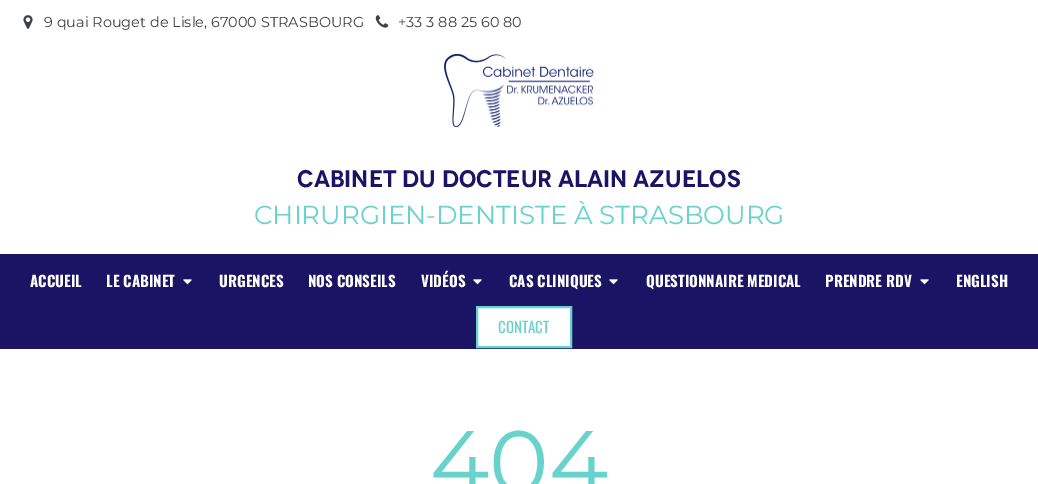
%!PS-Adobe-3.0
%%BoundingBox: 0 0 1038 484
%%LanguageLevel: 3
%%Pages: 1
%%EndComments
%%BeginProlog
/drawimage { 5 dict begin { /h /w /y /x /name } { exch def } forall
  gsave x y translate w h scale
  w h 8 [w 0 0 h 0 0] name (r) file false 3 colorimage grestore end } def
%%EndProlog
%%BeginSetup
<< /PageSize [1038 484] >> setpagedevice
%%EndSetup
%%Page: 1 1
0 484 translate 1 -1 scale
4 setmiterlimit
1 setgray
0 0 1038 484 rectfill
(images/1.raw) 23 15 10 14 drawimage
(images/2.raw) 375 15 14 13 drawimage
(images/3.raw) 444 54 150 73 drawimage
0.106 0.078 0.392 setrgbcolor
0 254 1038 95 rectfill
(images/4.raw) 183 279 9 6 drawimage
(images/4.raw) 473 279 9 6 drawimage
(images/4.raw) 609 279 9 6 drawimage
(images/4.raw) 920 279 9 6 drawimage
1 setgray
newpath 477 307 moveto 571 307 lineto 571 347 lineto 477 347 lineto closepath gsave fill grestore
0.408 0.824 0.804 setrgbcolor
2 setlinewidth
stroke
/Montserrat-Regular [14.45 0 0 -14.45 0 0] selectfont
0.243 0.255 0.267 setrgbcolor
44 27 moveto (9 quai Rouget de Lisle, 67000 STRASBOURG) show
398 27 moveto (+33 3 88 25 60 80) show
/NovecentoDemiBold-SemiBold [24 0 0 -24 0 0] selectfont
0.106 0.078 0.392 setrgbcolor
297 187 moveto (CABINET DU DOCTEUR ALAIN AZUELOS) show
/Montserrat-Regular [26 0 0 -26 0 0] selectfont
0.408 0.824 0.804 setrgbcolor
254 224 moveto (CHIRURGIEN-DENTISTE À STRASBOURG) show
/Oswald-Bold [15 0 0 -15 0 0] selectfont
1 setgray
30 287 moveto (ACCUEIL) show
106 287 moveto (LE CABINET) show
219 287 moveto (URGENCES) show
308 287 moveto (NOS CONSEILS) show
421 287 moveto (VIDÉOS) show
509 287 moveto (CAS CLINIQUES) show
646 287 moveto (QUESTIONNAIRE MEDICAL) show
825 287 moveto (PRENDRE RDV) show
956 287 moveto (ENGLISH) show
/Oswald-Regular [15 0 0 -15 0 0] selectfont
0.408 0.824 0.804 setrgbcolor
498 333 moveto (CONTACT) show
/Montserrat-Regular [90 0 0 -90 0 0] selectfont
430 494 moveto (404) show
showpage
%%EOF
